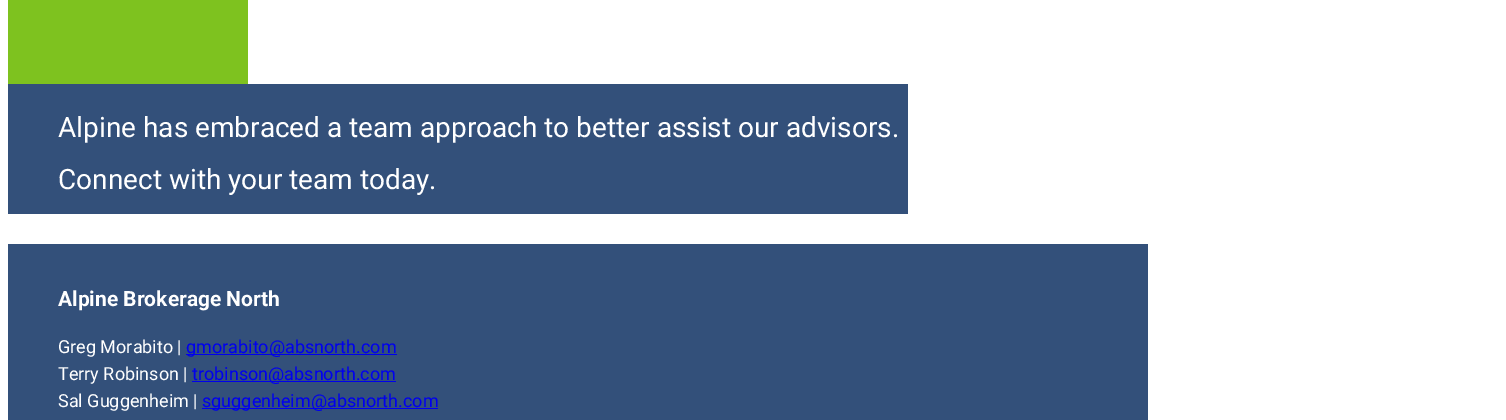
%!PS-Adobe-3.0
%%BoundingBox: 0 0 1506 420
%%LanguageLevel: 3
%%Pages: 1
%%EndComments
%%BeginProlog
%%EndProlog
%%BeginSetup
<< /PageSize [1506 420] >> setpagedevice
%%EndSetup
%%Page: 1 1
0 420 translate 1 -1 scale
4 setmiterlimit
1 setgray
0 0 1506 420 rectfill
0.494 0.761 0.122 setrgbcolor
8 0 240 84 rectfill
0.2 0.314 0.478 setrgbcolor
8 84 900 130 rectfill
8 244 1140 176 rectfill
0 0 0.933 setrgbcolor
186 354 211 1 rectfill
192 381 204 1 rectfill
202 408 236 1 rectfill
/Roboto-Regular [28 0 0 -28 0 0] selectfont
1 setgray
58 137 moveto (Alpine has embraced a team approach to better assist our advisors.) show
58 189 moveto (Connect with your team today.) show
/Roboto-Bold [21 0 0 -21 0 0] selectfont
58 306 moveto (Alpine Brokerage North) show
/Roboto-Regular [18 0 0 -18 0 0] selectfont
58 353 moveto (Greg Morabito |) show
0 0 0.933 setrgbcolor
186 353 moveto (gmorabito@absnorth.com) show
1 setgray
58 380 moveto (Terry Robinson |) show
0 0 0.933 setrgbcolor
192 380 moveto (trobinson@absnorth.com) show
1 setgray
58 407 moveto (Sal Guggenheim |) show
0 0 0.933 setrgbcolor
202 407 moveto (sguggenheim@absnorth.com) show
showpage
%%EOF
